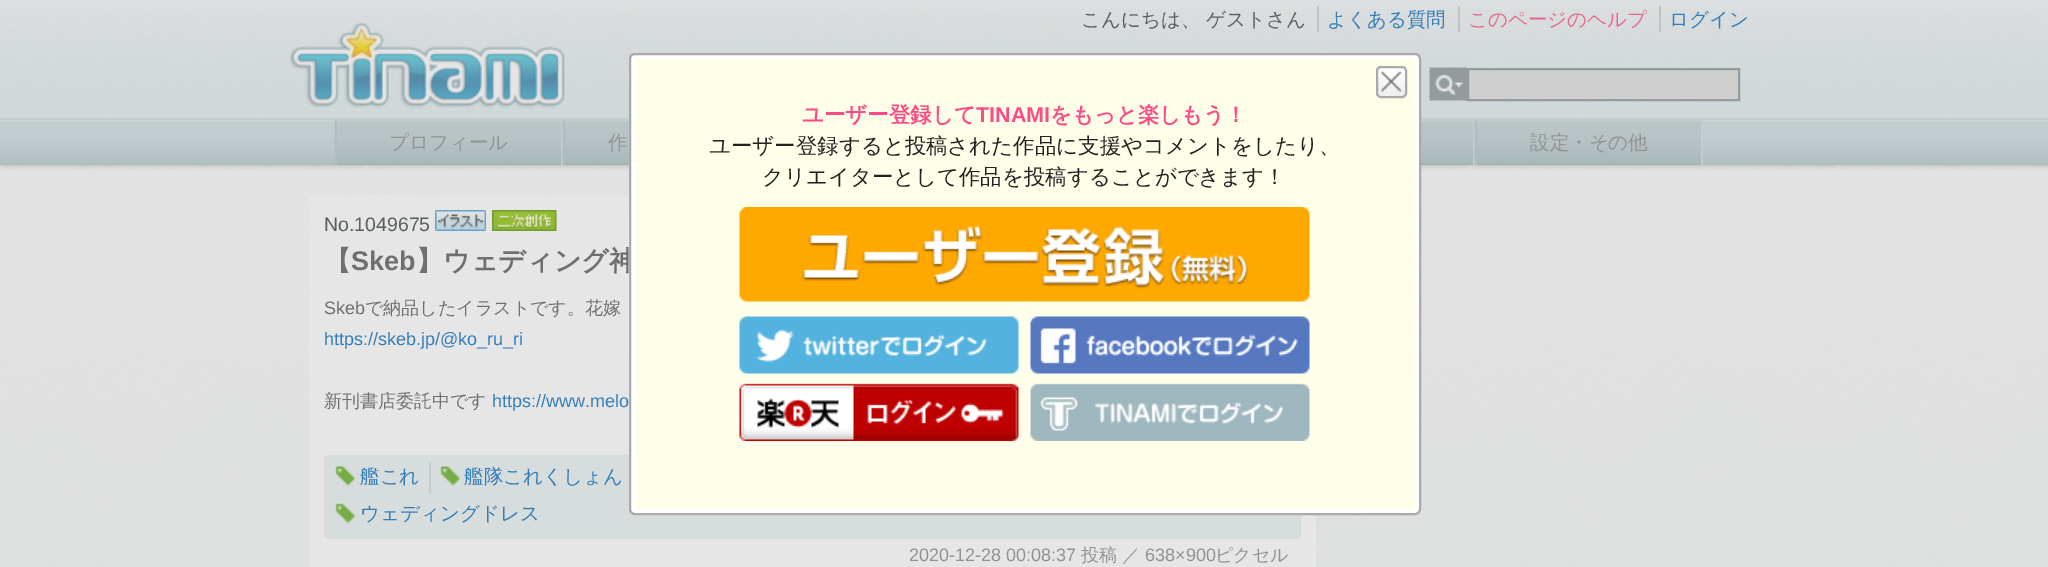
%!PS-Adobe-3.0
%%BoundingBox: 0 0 2048 567
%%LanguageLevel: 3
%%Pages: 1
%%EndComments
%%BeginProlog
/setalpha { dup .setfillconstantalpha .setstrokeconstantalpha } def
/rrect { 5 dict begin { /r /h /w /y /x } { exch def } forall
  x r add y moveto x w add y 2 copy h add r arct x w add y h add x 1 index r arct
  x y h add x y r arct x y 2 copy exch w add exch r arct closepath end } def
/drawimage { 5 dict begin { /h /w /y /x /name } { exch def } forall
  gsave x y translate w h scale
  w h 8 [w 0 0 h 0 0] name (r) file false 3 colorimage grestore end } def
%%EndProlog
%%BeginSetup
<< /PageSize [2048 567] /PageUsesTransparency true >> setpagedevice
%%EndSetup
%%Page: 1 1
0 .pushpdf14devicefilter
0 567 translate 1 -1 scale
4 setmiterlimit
0.859 0.875 0.875 setrgbcolor
0 0 2048 567 rectfill
(images/1.raw) 0 9 2048 558 drawimage
0.761 setgray
1317 6 2 26 rectfill
1458 6 2 26 rectfill
1659 6 2 26 rectfill
(images/2.raw) 289 22 276 86 drawimage
(images/3.raw) 1429 67 38 34 drawimage
0.808 setgray
newpath 1468 69 moveto 1739 69 lineto 1739 100 lineto 1468 100 lineto closepath gsave fill grestore
0.573 0.608 0.616 setrgbcolor
2 setlinewidth
stroke
(images/4.raw) 334 120 227 45 drawimage
0.765 0.8 0.816 setrgbcolor
561 120 2 45 rectfill
0.694 0.745 0.757 setrgbcolor
335 120 2 45 rectfill
(images/5.raw) 562 120 67 45 drawimage
563 120 2 45 rectfill
(images/6.raw) 1421 120 52 45 drawimage
0.765 0.8 0.816 setrgbcolor
1473 120 2 45 rectfill
(images/7.raw) 1474 120 227 45 drawimage
1701 120 2 45 rectfill
0.694 0.745 0.757 setrgbcolor
1475 120 2 45 rectfill
0.902 setgray
309 195 1007 372 rectfill
(images/11.raw) 435 210 51 21 drawimage
(images/12.raw) 492 210 65 21 drawimage
0.843 0.863 0.863 setrgbcolor
324 455 977 84 5 rrect fill
0.769 0.808 0.816 setrgbcolor
429 462 2 32 rectfill
(images/13.raw) 335 466 21 21 drawimage
(images/14.raw) 440 466 21 21 drawimage
(images/15.raw) 335 503 21 21 drawimage
/WenQuanYiZenHei-Medium [19.5 0 0 -19.5 0 0] selectfont
0.349 0.373 0.373 setrgbcolor
1081 26 moveto (こんにちは、) show
1206 26 moveto (ゲストさん) show
0.2 0.494 0.722 setrgbcolor
1327 26 moveto (よくある質問) show
0.902 0.408 0.565 setrgbcolor
1468 26 moveto (このページのヘルプ) show
0.2 0.494 0.722 setrgbcolor
1669 26 moveto (ログイン) show
0.573 setgray
389 149 moveto (プロフィール) show
608 149 moveto (作) show
1530 149 moveto (設定・その他) show
/LiberationSans-Regular [19.5 0 0 -19.5 0 0] selectfont
0.349 0.373 0.373 setrgbcolor
324 231 moveto (No.1049675) show
/WenQuanYiZenHei-Bold [27 0 0 -27 0 0] selectfont
0.435 setgray
324 270 moveto (【) show
/LiberationSans-Bold [27 0 0 -27 0 0] selectfont
351 270 moveto (Skeb) show
/WenQuanYiZenHei-Bold [27 0 0 -27 0 0] selectfont
416 270 moveto (】ウェディング神) show
1 setgray
630 54 790 460 5 rrect gsave fill grestore
0.667 setgray
stroke
1 0.996 0.91 setrgbcolor
635 59 780 450 rectfill
(images/8.raw) 1375 66 32 32 drawimage
0.667 setgray
1377 67 29 30 4 rrect stroke
(images/10.raw) 739 316 571 125 drawimage
(images/9.raw) 739 207 571 95 drawimage
/WenQuanYiZenHei-Medium [21.45 0 0 -21.45 0 0] selectfont
0.133 setgray
762 184 moveto (クリエイターとして作品を投稿することができます！) show
709 153 moveto (ユーザー登録すると投稿された作品に支援やコメントをしたり、) show
/WenQuanYiZenHei-Bold [21.45 0 0 -21.45 0 0] selectfont
1 0.294 0.522 setrgbcolor
1050 122 moveto (をもっと楽しもう！) show
/LiberationSans-Bold [21.45 0 0 -21.45 0 0] selectfont
976 122 moveto (TINAMI) show
/WenQuanYiZenHei-Bold [21.45 0 0 -21.45 0 0] selectfont
802 122 moveto (ユーザー登録して) show
0.25 setalpha
1 setgray
628 209 1 149 rectfill
/LiberationSans-Regular [18 0 0 -18 0 0] selectfont
1 setalpha
0.435 setgray
324 314 moveto (Skeb) show
/WenQuanYiZenHei-Medium [18 0 0 -18 0 0] selectfont
365 314 moveto (で納品したイラストです。花嫁) show
/LiberationSans-Regular [18 0 0 -18 0 0] selectfont
0.2 0.494 0.722 setrgbcolor
324 345 moveto (https://skeb.jp/@ko_ru_ri) show
/WenQuanYiZenHei-Medium [18 0 0 -18 0 0] selectfont
0.435 setgray
324 407 moveto (新刊書店委託中です) show
/LiberationSans-Regular [18 0 0 -18 0 0] selectfont
0.2 0.494 0.722 setrgbcolor
492 407 moveto (https://www.melo) show
/WenQuanYiZenHei-Medium [19.5 0 0 -19.5 0 0] selectfont
360 483 moveto (艦これ) show
464 483 moveto (艦隊これくしょん) show
360 520 moveto (ウェディングドレス) show
/LiberationSans-Regular [18 0 0 -18 0 0] selectfont
0.573 setgray
909 561 moveto (2020-12-28 00:08:37) show
/WenQuanYiZenHei-Medium [18 0 0 -18 0 0] selectfont
1081 561 moveto (投稿) show
1122 561 moveto (／) show
/LiberationSans-Regular [18 0 0 -18 0 0] selectfont
1145 561 moveto (638×900) show
/WenQuanYiZenHei-Medium [18 0 0 -18 0 0] selectfont
1215 561 moveto (ピクセル) show
.poppdf14devicefilter showpage
%%EOF
